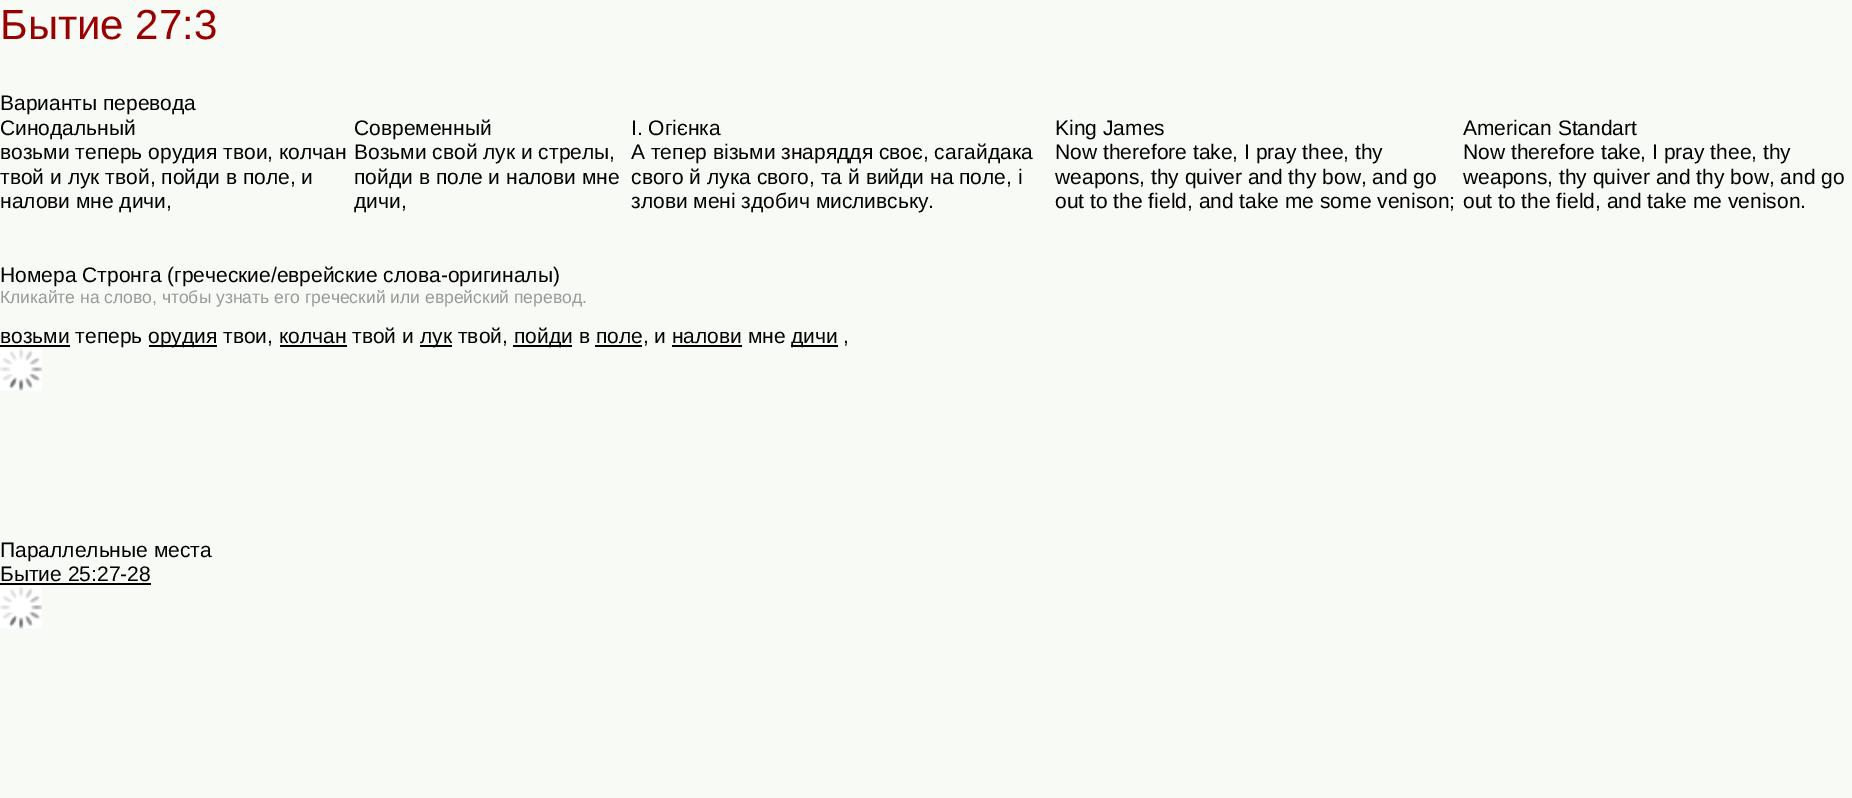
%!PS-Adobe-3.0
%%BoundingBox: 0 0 1852 798
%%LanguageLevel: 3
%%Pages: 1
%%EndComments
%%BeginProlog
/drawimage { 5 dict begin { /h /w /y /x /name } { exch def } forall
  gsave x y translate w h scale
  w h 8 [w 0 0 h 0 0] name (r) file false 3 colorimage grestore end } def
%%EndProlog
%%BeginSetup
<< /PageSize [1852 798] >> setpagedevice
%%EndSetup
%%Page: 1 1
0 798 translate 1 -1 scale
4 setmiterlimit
0.973 0.98 0.965 setrgbcolor
0 0 1852 798 rectfill
0 setgray
0 345 70 2 rectfill
149 345 68 2 rectfill
420 345 32 2 rectfill
513 345 59 2 rectfill
791 345 47 2 rectfill
280 345 67 2 rectfill
595 345 47 2 rectfill
672 345 70 2 rectfill
(images/1.raw) 0 348 42 43 drawimage
0 583 151 2 rectfill
(images/1.raw) 0 586 42 43 drawimage
/LiberationSans-Regular [42 0 0 -42 0 0] selectfont
0.6 0 0 setrgbcolor
0 39 moveto (Бытие 27:3) show
/LiberationSans-Regular [21 0 0 -21 0 0] selectfont
0 setgray
0 110 moveto (Варианты перевода) show
0 135 moveto (Синодальный) show
0 159 moveto (возьми теперь орудия твои, колчан) show
0 184 moveto (твой и лук твой, пойди в поле, и) show
0 208 moveto (налови мне дичи,) show
354 135 moveto (Современный) show
354 159 moveto (Возьми свой лук и стрелы,) show
354 184 moveto (пойди в поле и налови мне) show
354 208 moveto (дичи,) show
631 135 moveto (I. Oгієнка) show
631 159 moveto (А тепер візьми знаряддя своє, сагайдака) show
631 184 moveto (свого й лука свого, та й вийди на поле, і) show
631 208 moveto (злови мені здобич мисливську.) show
1055 135 moveto (King James) show
1055 159 moveto (Now therefore take, I pray thee, thy) show
1055 184 moveto (weapons, thy quiver and thy bow, and go) show
1055 208 moveto (out to the field, and take me some venison;) show
1463 135 moveto (American Standart) show
1463 159 moveto (Now therefore take, I pray thee, thy) show
1463 184 moveto (weapons, thy quiver and thy bow, and go) show
1463 208 moveto (out to the field, and take me venison.) show
0 282 moveto (Номера Стронга \(греческие/еврейские слова-оригиналы\)) show
/LiberationSans-Regular [17.5 0 0 -17.5 0 0] selectfont
0.6 setgray
0 303 moveto (Кликайте на слово, чтобы узнать его греческий или еврейский перевод.) show
/LiberationSans-Regular [21 0 0 -21 0 0] selectfont
0 setgray
0 343 moveto (возьми теперь) show
148 343 moveto (орудия твои, колчан твой и) show
420 343 moveto (лук твой,) show
514 343 moveto (пойди в поле, и налови мне) show
791 343 moveto (дичи ,) show
0 557 moveto (Параллельные места) show
0 581 moveto (Бытие 25:27-28) show
showpage
%%EOF
